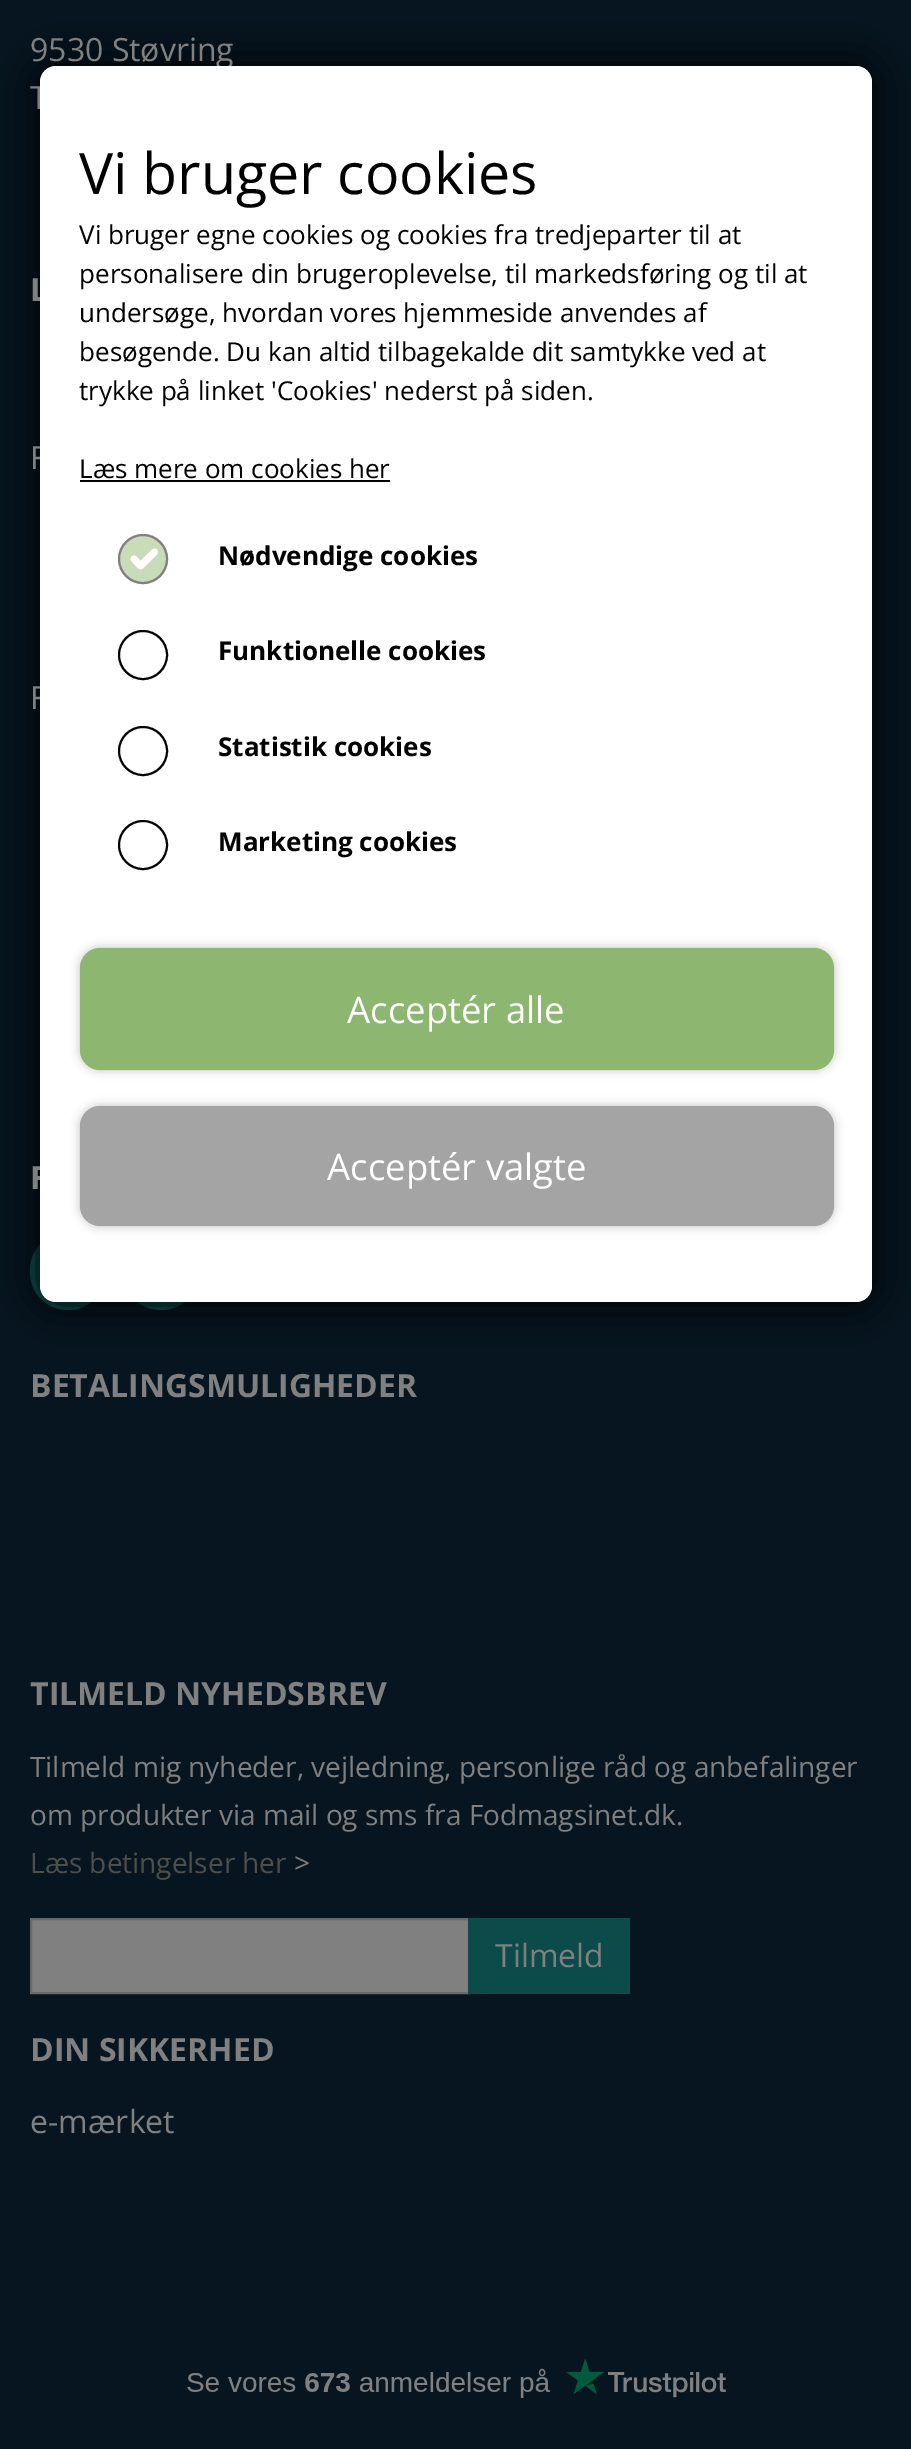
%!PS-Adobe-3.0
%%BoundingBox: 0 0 911 2449
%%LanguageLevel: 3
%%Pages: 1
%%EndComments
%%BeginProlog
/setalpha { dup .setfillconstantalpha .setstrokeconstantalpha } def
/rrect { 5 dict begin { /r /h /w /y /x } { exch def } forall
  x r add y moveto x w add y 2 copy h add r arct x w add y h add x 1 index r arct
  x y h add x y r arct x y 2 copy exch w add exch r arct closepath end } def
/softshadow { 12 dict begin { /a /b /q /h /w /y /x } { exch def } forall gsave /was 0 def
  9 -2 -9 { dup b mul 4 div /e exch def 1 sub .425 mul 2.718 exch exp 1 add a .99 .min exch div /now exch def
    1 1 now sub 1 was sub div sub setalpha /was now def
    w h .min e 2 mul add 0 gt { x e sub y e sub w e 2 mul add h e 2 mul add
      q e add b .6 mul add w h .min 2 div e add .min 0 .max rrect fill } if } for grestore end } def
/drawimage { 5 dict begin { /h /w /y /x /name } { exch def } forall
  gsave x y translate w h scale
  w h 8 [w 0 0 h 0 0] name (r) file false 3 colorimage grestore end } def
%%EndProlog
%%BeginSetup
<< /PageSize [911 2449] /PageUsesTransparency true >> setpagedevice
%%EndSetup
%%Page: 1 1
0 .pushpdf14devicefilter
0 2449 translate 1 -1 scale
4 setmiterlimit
0.024 0.082 0.122 setrgbcolor
0 0 911 2449 rectfill
0.043 0.294 0.29 setrgbcolor
30 1232 76 78 38 rrect fill
newpath 161 1271 39 0 360 arc closepath fill
0.502 setgray
newpath 31 1919 moveto 469 1919 lineto 469 1993 lineto 31 1993 lineto closepath gsave fill grestore
0.404 0.416 0.427 setrgbcolor
2 setlinewidth
stroke
0.043 0.294 0.29 setrgbcolor
468 1918 162 76 rectfill
(images/1.raw) 187 2358 539 40 drawimage
0 setgray
40 66 832 1236 16 20 1 softshadow
/OpenSans-Regular [32 0 0 -32 0 0] selectfont
0.502 setgray
30 61 moveto (9530 Støvring) show
30 109 moveto (T) show
/OpenSans-Bold [32 0 0 -32 0 0] selectfont
30 301 moveto (L) show
/OpenSans-Regular [32 0 0 -32 0 0] selectfont
30 469 moveto (F) show
30 709 moveto (F) show
/OpenSans-Bold [32 0 0 -32 0 0] selectfont
30 1189 moveto (F) show
30 1397 moveto (BETALINGSMULIGHEDER) show
30 1705 moveto (TILMELD NYHEDSBREV) show
/OpenSans-Regular [28 0 0 -28 0 0] selectfont
30 1777 moveto (Tilmeld mig nyheder, vejledning, personlige råd og anbefalinger) show
30 1825 moveto (om produkter via mail og sms fra Fodmagsinet.dk.) show
0.306 0.306 0.29 setrgbcolor
30 1873 moveto (Læs betingelser her) show
0.502 setgray
294 1873 moveto (>) show
/OpenSans-Regular [32 0 0 -32 0 0] selectfont
495 1967 moveto (Tilmeld) show
/OpenSans-Bold [32 0 0 -32 0 0] selectfont
30 2061 moveto (DIN SIKKERHED) show
/OpenSans-Regular [32 0 0 -32 0 0] selectfont
30 2133 moveto (e-mærket) show
1 setgray
40 66 832 1236 16 rrect fill
/OpenSans-Regular [57.25 0 0 -57.25 0 0] selectfont
0 setgray
79 194 moveto (Vi bruger cookies) show
/OpenSans-Regular [26 0 0 -26 0 0] selectfont
79 244 moveto (Vi bruger egne cookies og cookies fra tredjeparter til at) show
79 283 moveto (personalisere din brugeroplevelse, til markedsføring og til at) show
79 322 moveto (undersøge, hvordan vores hjemmeside anvendes af) show
79 361 moveto (besøgende. Du kan altid tilbagekalde dit samtykke ved at) show
79 400 moveto (trykke på linket 'Cookies' nederst på siden.) show
79 478 moveto (Læs mere om cookies her) show
80 480 310 2 rectfill
0.784 0.863 0.729 setrgbcolor
newpath 143 559 25 0 360 arc closepath fill
1 setgray
6.9 setlinewidth
1 setlinecap
1 setlinejoin
newpath 134 559 moveto 140.5 566 lineto 154.5 552 lineto stroke
0.502 setgray
2 setlinewidth
0 setlinecap
0 setlinejoin
newpath 143 559 24 0 360 arc closepath stroke
/OpenSans-Bold [26 0 0 -26 0 0] selectfont
0 setgray
218 565 moveto (Nødvendige cookies) show
newpath 143 655 24 0 360 arc closepath stroke
218 660 moveto (Funktionelle cookies) show
newpath 143 751 24 0 360 arc closepath stroke
218 756 moveto (Statistik cookies) show
newpath 143 845 24 0 360 arc closepath stroke
218 851 moveto (Marketing cookies) show
80 948 754 122 20 5 0.25 softshadow
0.553 0.714 0.443 setrgbcolor
80 948 754 122 20 rrect fill
/OpenSans-Regular [36.5 0 0 -36.5 0 0] selectfont
1 setgray
347 1023 moveto (Acceptér alle) show
0 setgray
80 1106 754 120 20 5 0.25 softshadow
0.643 setgray
80 1106 754 120 20 rrect fill
1 setgray
327 1180 moveto (Acceptér valgte) show
.poppdf14devicefilter showpage
%%EOF
